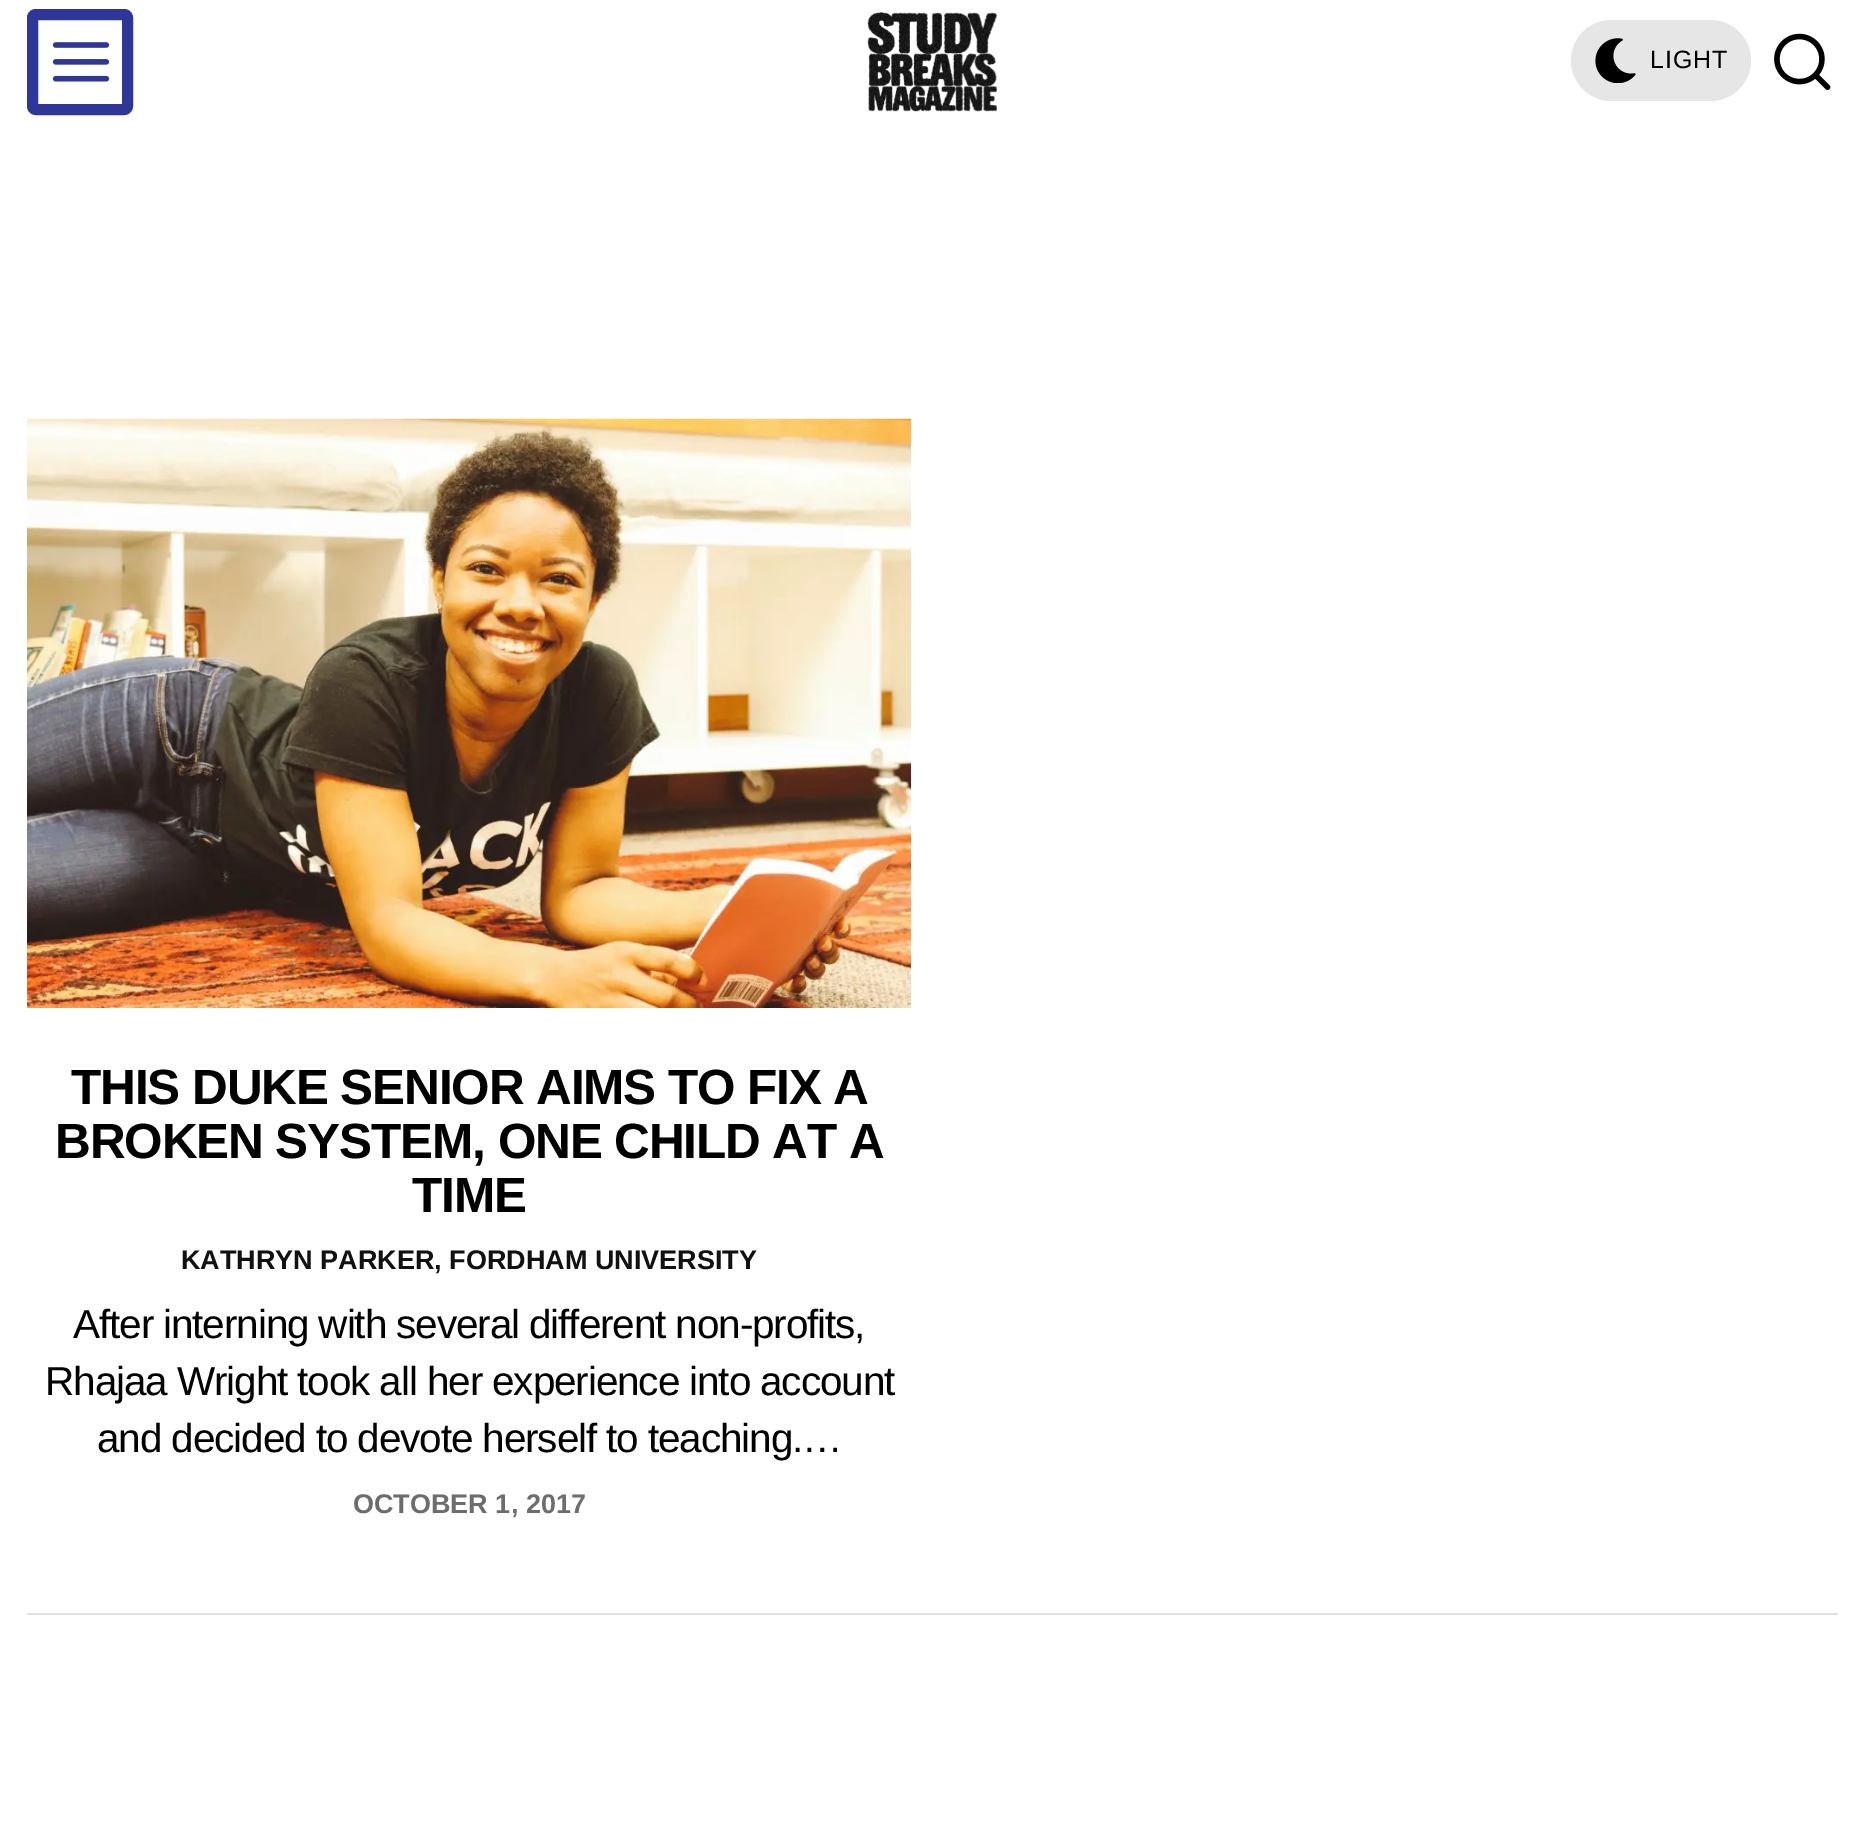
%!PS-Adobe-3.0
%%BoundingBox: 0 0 1865 1825
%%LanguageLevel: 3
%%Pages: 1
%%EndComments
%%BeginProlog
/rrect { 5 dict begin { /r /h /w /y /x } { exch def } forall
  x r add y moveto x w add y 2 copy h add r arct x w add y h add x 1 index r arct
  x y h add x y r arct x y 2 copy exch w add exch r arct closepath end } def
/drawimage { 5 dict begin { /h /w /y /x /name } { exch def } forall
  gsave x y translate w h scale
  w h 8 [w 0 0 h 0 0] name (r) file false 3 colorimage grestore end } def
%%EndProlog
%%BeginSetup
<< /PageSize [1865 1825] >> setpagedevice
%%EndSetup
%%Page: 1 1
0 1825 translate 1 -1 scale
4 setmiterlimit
1 setgray
0 0 1865 1825 rectfill
0.18 0.212 0.592 setrgbcolor
11 setlinewidth
32.5 14.5 95 95 3.5 rrect stroke
(images/1.raw) 52 42 58 40 drawimage
(images/2.raw) 867 12 131 100 drawimage
0.902 setgray
1571 20 180 81 40.5 rrect fill
(images/3.raw) 1595 38 41 45 drawimage
(images/4.raw) 1774 33 57 57 drawimage
0.882 setgray
27 1613 1811 2 rectfill
(images/5.raw) 27 418 885 590 drawimage
/LiberationSans-Regular [25 0 0 -25 0 0] selectfont
0 setgray
1650 68 moveto 1 0 (LIGHT) ashow
/LiberationSans-Bold [49.5 0 0 -49.5 0 0] selectfont
71 1104 moveto -1.12 0 (THIS DUKE SENIOR AIMS TO FIX A) ashow
55 1158 moveto -1.12 0 (BROKEN SYSTEM, ONE CHILD AT A) ashow
412 1212 moveto -1.12 0 (TIME) ashow
/LiberationSans-Bold [27 0 0 -27 0 0] selectfont
0.067 setgray
181 1269 moveto (KATHRYN PARKER, FORDHAM UNIVERSITY) show
/LiberationSans-Regular [40.5 0 0 -40.5 0 0] selectfont
0 setgray
73 1338 moveto -1.12 0 (After interning with several different non-profits,) ashow
45 1395 moveto -1.12 0 (Rhajaa Wright took all her experience into account) ashow
97 1452 moveto -1.12 0 (and decided to devote herself to teaching.…) ashow
/LiberationSans-Bold [27 0 0 -27 0 0] selectfont
0.427 setgray
353 1513 moveto (OCTOBER 1, 2017) show
showpage
%%EOF
